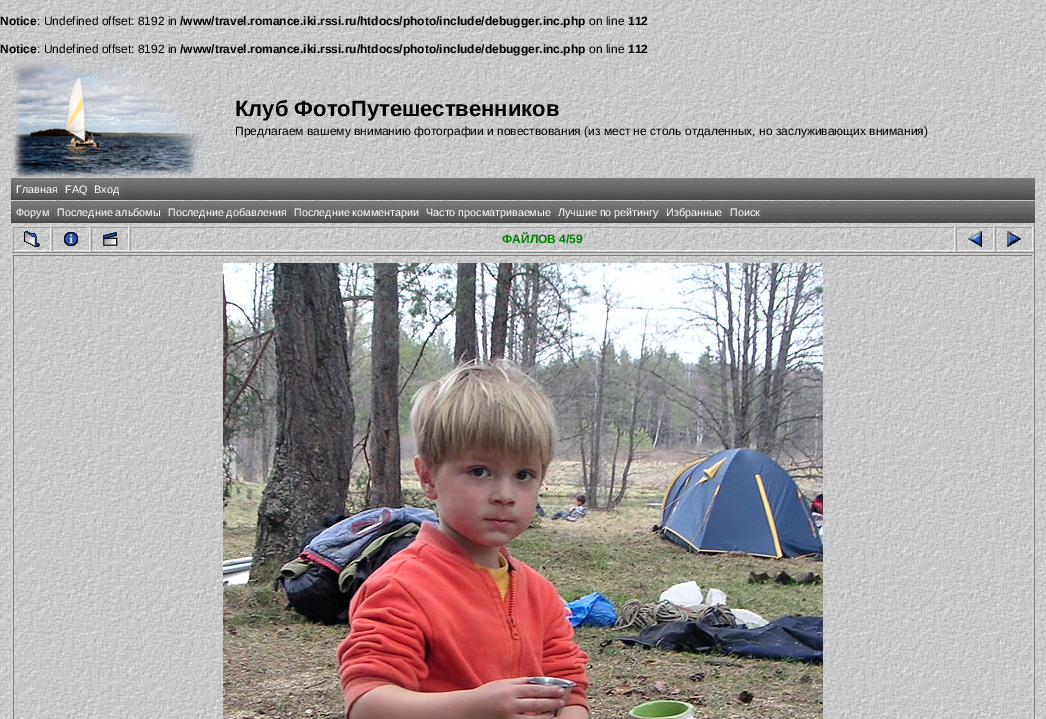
%!PS-Adobe-3.0
%%BoundingBox: 0 0 1046 719
%%LanguageLevel: 3
%%Pages: 1
%%EndComments
%%BeginProlog
/drawimage { 5 dict begin { /h /w /y /x /name } { exch def } forall
  gsave x y translate w h scale
  w h 8 [w 0 0 h 0 0] name (r) file false 3 colorimage grestore end } def
%%EndProlog
%%BeginSetup
<< /PageSize [1046 719] >> setpagedevice
%%EndSetup
%%Page: 1 1
0 719 translate 1 -1 scale
4 setmiterlimit
1 setgray
0 0 1046 719 rectfill
(images/1.raw) 0 0 1046 719 drawimage
(images/2.raw) 11 57 193 120 drawimage
(images/3.raw) 11 178 1024 22 drawimage
(images/4.raw) 13 180 47 18 drawimage
(images/5.raw) 62 180 27 18 drawimage
(images/6.raw) 91 180 30 18 drawimage
(images/3.raw) 11 201 1024 22 drawimage
(images/7.raw) 13 203 39 18 drawimage
(images/8.raw) 54 203 109 18 drawimage
(images/9.raw) 165 203 124 18 drawimage
(images/10.raw) 291 203 130 18 drawimage
(images/11.raw) 423 203 130 18 drawimage
(images/12.raw) 555 203 106 18 drawimage
(images/13.raw) 663 203 62 18 drawimage
(images/14.raw) 727 203 35 18 drawimage
0.831 0.816 0.784 setrgbcolor
11 225 1024 1 rectfill
0.502 setgray
1034 225 1 28 rectfill
11 252 1024 1 rectfill
0.831 0.816 0.784 setrgbcolor
11 225 1 28 rectfill
0.624 setgray
13 227 38 1 rectfill
0.933 setgray
50 227 1 24 rectfill
13 250 38 1 rectfill
0.624 setgray
13 227 1 24 rectfill
(images/15.raw) 24 231 16 16 drawimage
52 227 38 1 rectfill
0.933 setgray
89 227 1 24 rectfill
52 250 38 1 rectfill
0.624 setgray
52 227 1 24 rectfill
(images/16.raw) 64 232 14 14 drawimage
91 227 38 1 rectfill
0.933 setgray
128 227 1 24 rectfill
91 250 38 1 rectfill
0.624 setgray
91 227 1 24 rectfill
(images/17.raw) 103 232 15 14 drawimage
130 227 825 1 rectfill
0.933 setgray
954 227 1 24 rectfill
130 250 825 1 rectfill
0.624 setgray
130 227 1 24 rectfill
956 227 38 1 rectfill
0.933 setgray
993 227 1 24 rectfill
956 250 38 1 rectfill
0.624 setgray
956 227 1 24 rectfill
(images/18.raw) 968 231 14 16 drawimage
995 227 38 1 rectfill
0.933 setgray
1032 227 1 24 rectfill
995 250 38 1 rectfill
0.624 setgray
995 227 1 24 rectfill
(images/19.raw) 1007 231 14 16 drawimage
0.831 0.816 0.784 setrgbcolor
11 253 1024 1 rectfill
0.502 setgray
1034 253 1 466 rectfill
0.831 0.816 0.784 setrgbcolor
11 253 1 466 rectfill
0.502 setgray
13 255 1020 1 rectfill
0.831 0.816 0.784 setrgbcolor
1032 255 1 464 rectfill
0.502 setgray
13 255 1 464 rectfill
(images/20.raw) 223 263 600 456 drawimage
/LiberationSans-Bold [12 0 0 -12 0 0] selectfont
0 setgray
0 25 moveto (Notice) show
/LiberationSans-Regular [12 0 0 -12 0 0] selectfont
37 25 moveto (: Undefined offset: 8192 in) show
/LiberationSans-Bold [12 0 0 -12 0 0] selectfont
180 25 moveto (/www/travel.romance.iki.rssi.ru/htdocs/photo/include/debugger.inc.php) show
/LiberationSans-Regular [12 0 0 -12 0 0] selectfont
589 25 moveto (on line) show
/LiberationSans-Bold [12 0 0 -12 0 0] selectfont
628 25 moveto (112) show
0 53 moveto (Notice) show
/LiberationSans-Regular [12 0 0 -12 0 0] selectfont
37 53 moveto (: Undefined offset: 8192 in) show
/LiberationSans-Bold [12 0 0 -12 0 0] selectfont
180 53 moveto (/www/travel.romance.iki.rssi.ru/htdocs/photo/include/debugger.inc.php) show
/LiberationSans-Regular [12 0 0 -12 0 0] selectfont
589 53 moveto (on line) show
/LiberationSans-Bold [12 0 0 -12 0 0] selectfont
628 53 moveto (112) show
/LiberationSans-Bold [22 0 0 -22 0 0] selectfont
235 116 moveto (Клуб ФотоПутешественников) show
/LiberationSans-Regular [12 0 0 -12 0 0] selectfont
235 135 moveto (Предлагаем вашему вниманию фотографии и повествования \(из мест не столь отдаленных, но заслуживающих внимания\)) show
/LiberationSans-Regular [10.75 0 0 -10.75 0 0] selectfont
1 setgray
16 193 moveto (Главная) show
65 193 moveto (FAQ) show
94 193 moveto (Вход) show
16 216 moveto (Форум) show
57 216 moveto (Последние альбомы) show
168 216 moveto (Последние добавления) show
294 216 moveto (Последние комментарии) show
426 216 moveto (Часто просматриваемые) show
558 216 moveto (Лучшие по рейтингу) show
666 216 moveto (Избранные) show
730 216 moveto (Поиск) show
/LiberationSans-Bold [12 0 0 -12 0 0] selectfont
0 0.502 0 setrgbcolor
502 243 moveto (ФАЙЛОВ 4/59) show
showpage
%%EOF
